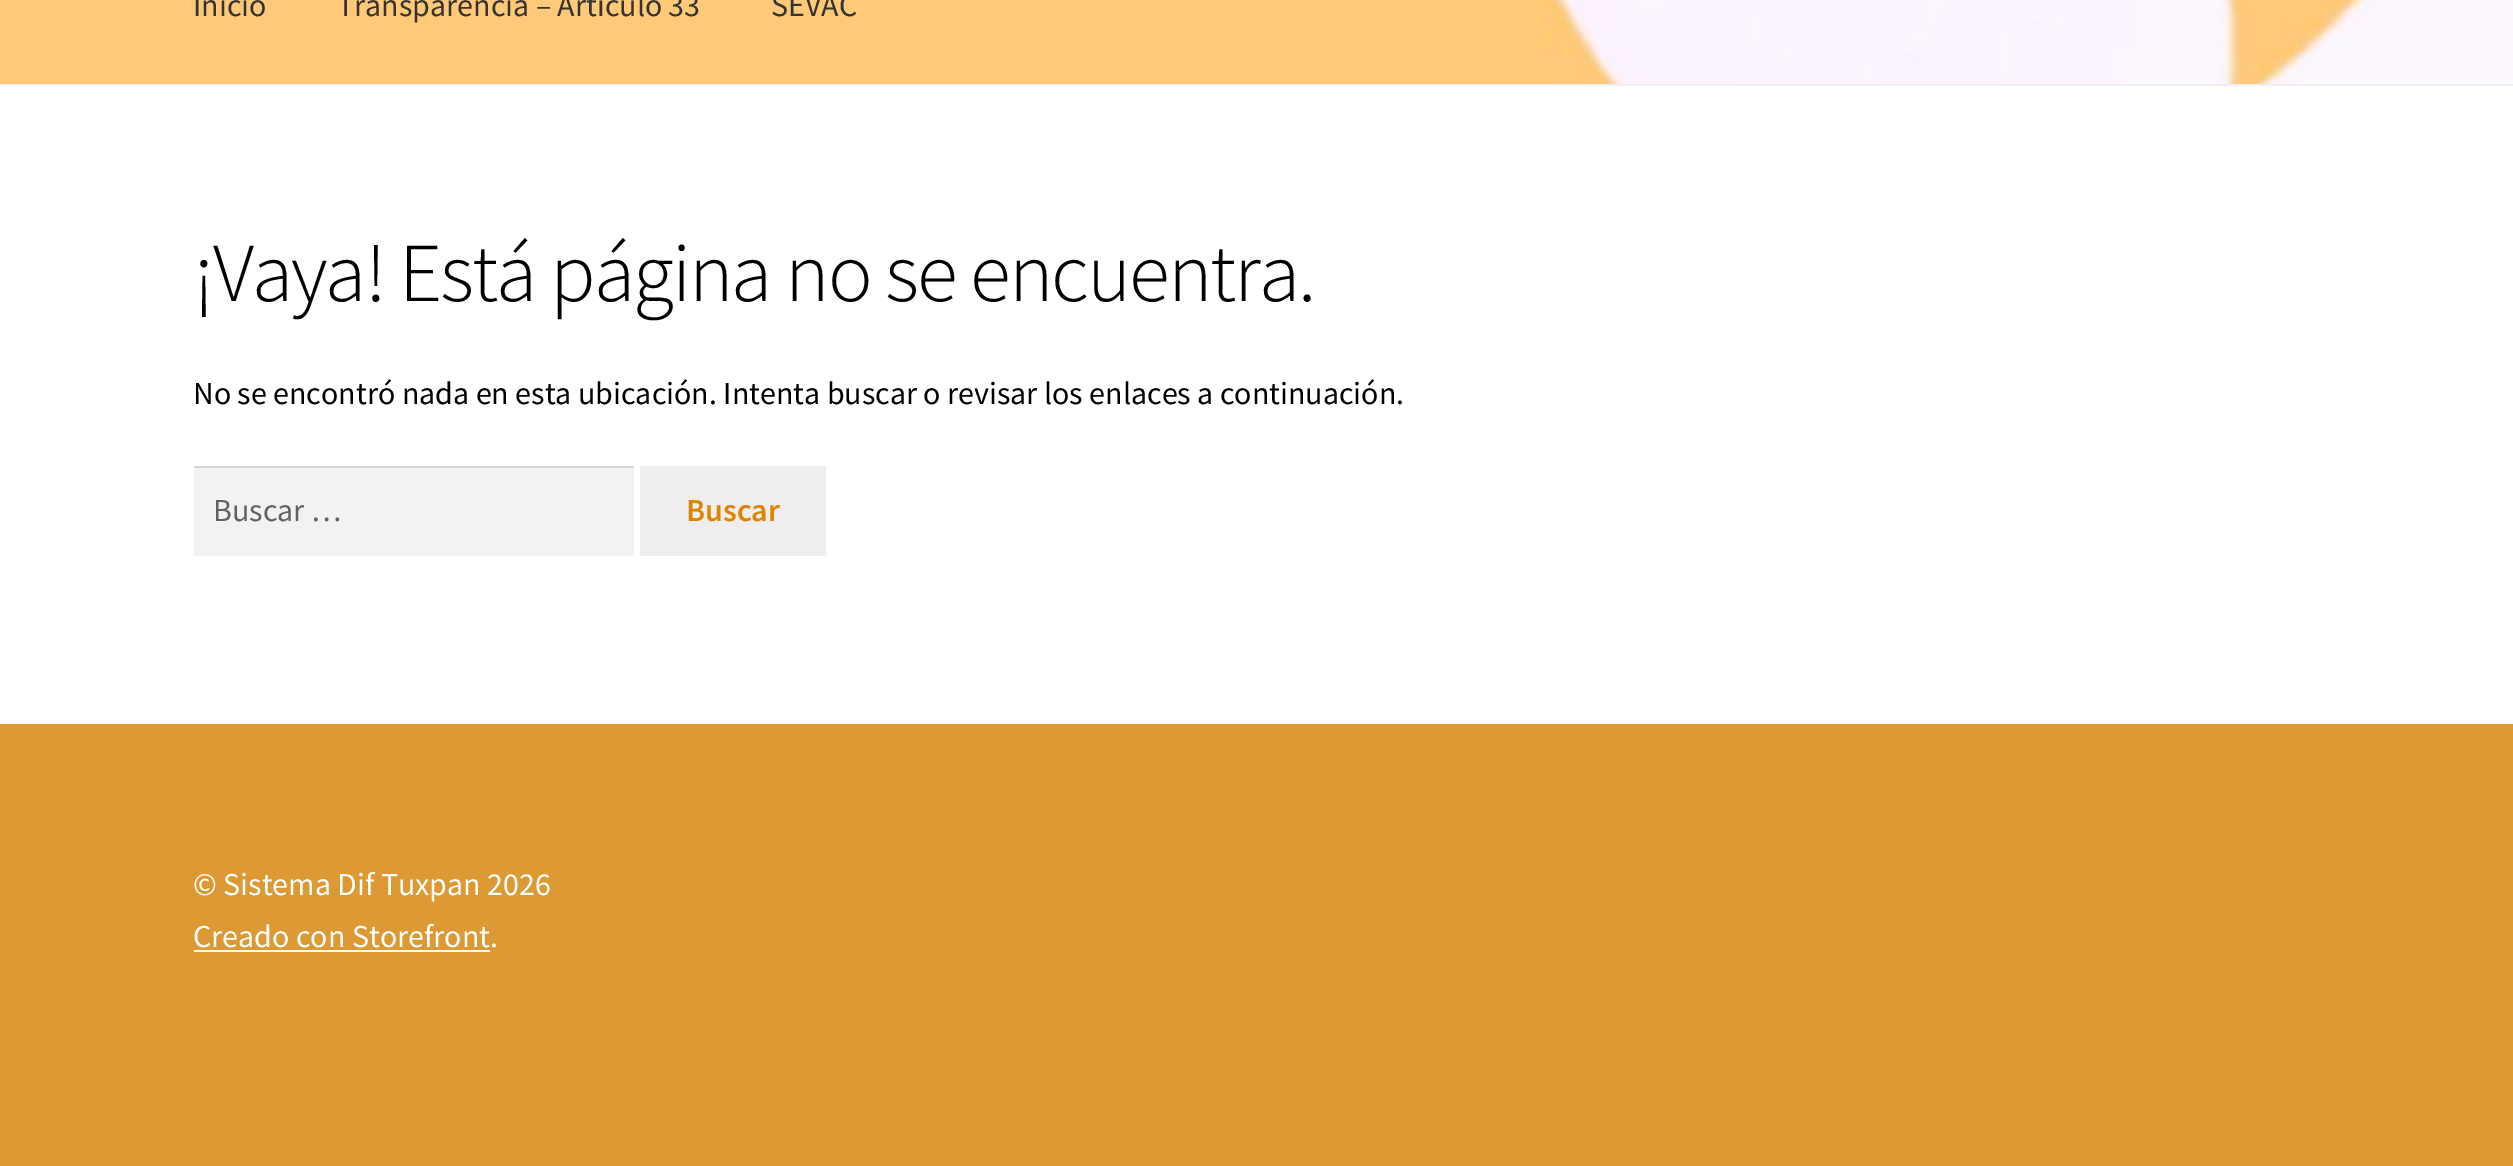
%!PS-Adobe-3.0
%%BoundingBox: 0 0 2513 1166
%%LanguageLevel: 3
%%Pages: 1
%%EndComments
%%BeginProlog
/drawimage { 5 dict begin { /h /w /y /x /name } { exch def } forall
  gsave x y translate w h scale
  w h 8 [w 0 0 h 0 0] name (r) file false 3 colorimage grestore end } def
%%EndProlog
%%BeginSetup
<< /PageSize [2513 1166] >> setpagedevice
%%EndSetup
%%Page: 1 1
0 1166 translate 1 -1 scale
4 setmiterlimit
1 setgray
0 0 2513 1166 rectfill
(images/1.raw) 0 0 2513 84 drawimage
0.941 setgray
0 84 2513 2 rectfill
0.949 setgray
194 468 440 88 rectfill
0.831 setgray
194 466 440 2 rectfill
0.933 setgray
640 466 186 90 rectfill
0.867 0.6 0.2 setrgbcolor
0 724 2513 442 rectfill
1 setgray
194 950 296 2 rectfill
/SourceSansPro-Regular [32 0 0 -32 0 0] selectfont
0.2 setgray
193 16 moveto (Inicio) show
337 16 moveto (Transparencia – Artículo 33) show
771 16 moveto (SEVAC) show
/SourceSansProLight-Light [83.75 0 0 -83.75 0 0] selectfont
0 setgray
193 301 moveto -2 0 (¡Vaya! Está página no se encuentra.) ashow
/SourceSansPro-Regular [32 0 0 -32 0 0] selectfont
193 404 moveto (No se encontró nada en esta ubicación. Intenta buscar o revisar los enlaces a continuación.) show
0.38 setgray
213 521 moveto (Buscar …) show
/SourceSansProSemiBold-SemiBold [32 0 0 -32 0 0] selectfont
0.867 0.522 0 setrgbcolor
686 521 moveto (Buscar) show
/SourceSansPro-Regular [32 0 0 -32 0 0] selectfont
1 setgray
193 895 moveto (© Sistema Dif Tuxpan 2026) show
193 947 moveto (Creado con Storefront.) show
showpage
%%EOF
